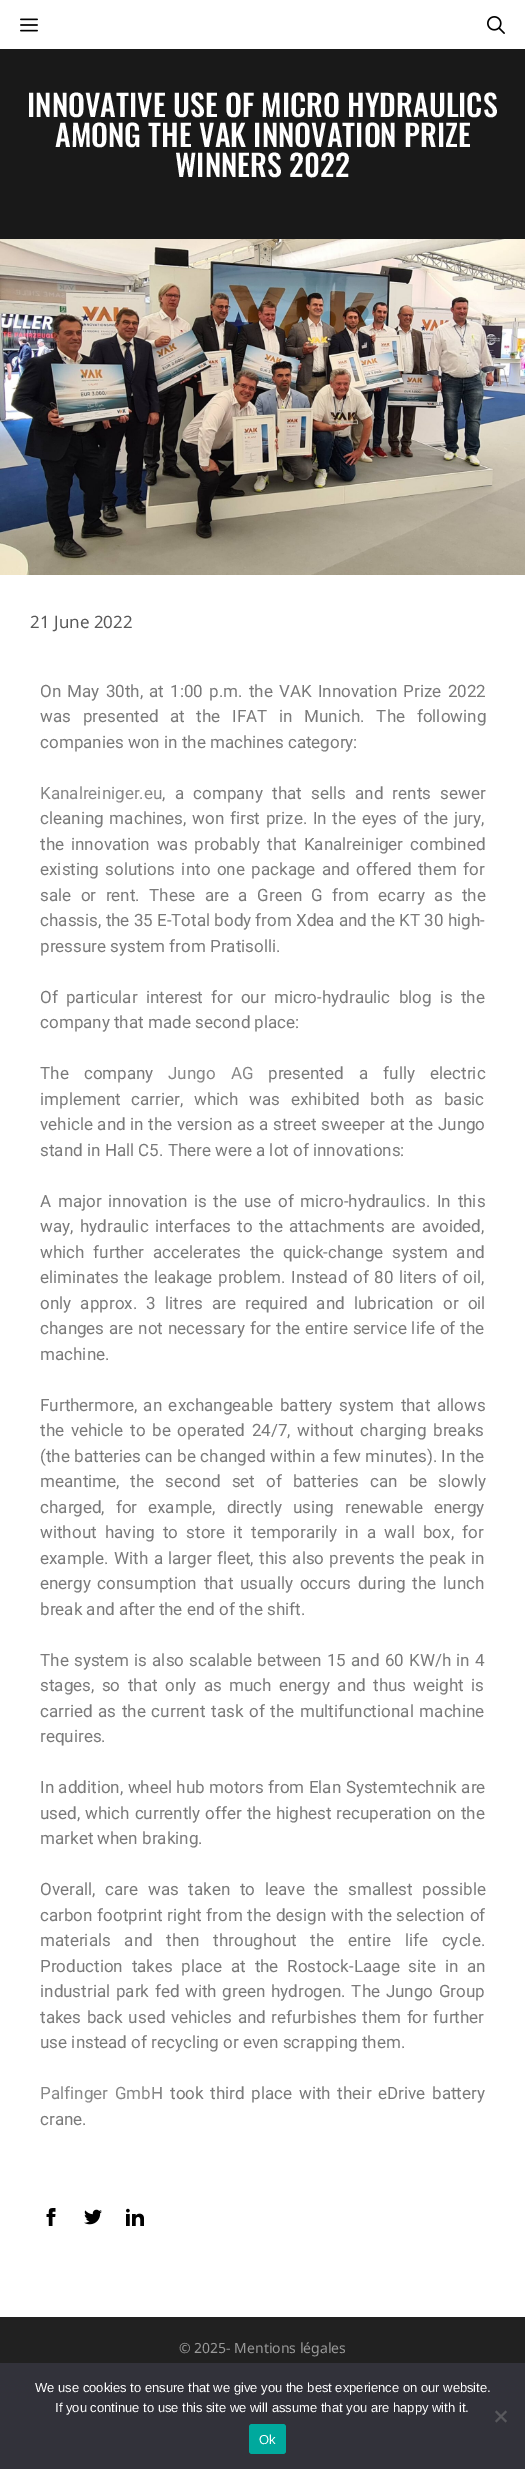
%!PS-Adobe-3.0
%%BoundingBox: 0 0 525 2469
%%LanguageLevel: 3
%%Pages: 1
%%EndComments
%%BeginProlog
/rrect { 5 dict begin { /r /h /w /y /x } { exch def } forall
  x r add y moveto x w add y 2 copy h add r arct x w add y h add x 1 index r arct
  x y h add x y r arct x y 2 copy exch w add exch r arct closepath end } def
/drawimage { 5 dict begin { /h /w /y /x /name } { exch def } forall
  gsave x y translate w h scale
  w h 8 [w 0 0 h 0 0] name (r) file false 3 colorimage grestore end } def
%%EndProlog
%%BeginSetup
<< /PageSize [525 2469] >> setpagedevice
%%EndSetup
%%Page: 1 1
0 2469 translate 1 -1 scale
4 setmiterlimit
1 setgray
0 0 525 2469 rectfill
(images/1.raw) 20 18 18 14 drawimage
(images/2.raw) 487 16 18 18 drawimage
0.098 setgray
0 49 525 190 rectfill
(images/3.raw) 0 239 525 336 drawimage
(images/4.raw) 46 2208 10 18 drawimage
(images/5.raw) 84 2209 18 16 drawimage
(images/6.raw) 126 2208 18 18 drawimage
0.129 setgray
0 2317 525 46 rectfill
0.196 0.196 0.227 setrgbcolor
0 2363 525 106 rectfill
0.349 0.349 0.365 setrgbcolor
newpath 505.5 2410.5 moveto 507 2412 lineto 496.5 2422.5 lineto 495 2421 lineto closepath fill
newpath 495 2412 moveto 496.5 2410.5 lineto 507 2421 lineto 505.5 2422.5 lineto closepath fill
0 0.663 0.616 setrgbcolor
249 2424 37 30 3 rrect fill
/Oswald-Medium [30 0 0 -30 0 0] selectfont
1 setgray
27 117 moveto (INNOVATIVE USE OF MICRO HYDRAULICS) show
55 147 moveto (AMONG THE VAK INNOVATION PRIZE) show
175 177 moveto (WINNERS 2022) show
/NotoSans-Regular [17 0 0 -17 0 0] selectfont
0.349 setgray
30 628 moveto (21 June 2022) show
/Roboto-Regular [17 0 0 -17 0 0] selectfont
0.478 setgray
40 697 moveto 2 0 32 (On May 30th, at 1:00 p.m. the VAK Innovation Prize 2022) widthshow
40 722 moveto 7.5 0 32 (was presented at the IFAT in Munich. The following) widthshow
40 748 moveto (companies won in the machines category:) show
0.529 setgray
40 799 moveto (Kanalreiniger.eu) show
0.478 setgray
162 799 moveto 5 0 32 (, a company that sells and rents sewer) widthshow
40 824 moveto 1.5 0 32 (cleaning machines, won first prize. In the eyes of the jury,) widthshow
40 850 moveto 2.75 0 32 (the innovation was probably that Kanalreiniger combined) widthshow
40 875 moveto 2.25 0 32 (existing solutions into one package and offered them for) widthshow
40 901 moveto 5.25 0 32 (sale or rent. These are a Green G from ecarry as the) widthshow
40 926 moveto (chassis, the 35 E-Total body from Xdea and the KT 30 high-) show
40 952 moveto (pressure system from Pratisolli.) show
40 1003 moveto 4 0 32 (Of particular interest for our micro-hydraulic blog is the) widthshow
40 1028 moveto (company that made second place:) show
40 1079 moveto 11 0 32 (The company) widthshow
0.529 setgray
168 1079 moveto 11 0 32 (Jungo AG) widthshow
0.478 setgray
268 1079 moveto 11 0 32 (presented a fully electric) widthshow
40 1105 moveto 6.5 0 32 (implement carrier, which was exhibited both as basic) widthshow
40 1130 moveto 0.4 0 32 (vehicle and in the version as a street sweeper at the Jungo) widthshow
40 1156 moveto (stand in Hall C5. There were a lot of innovations:) show
40 1207 moveto 2.5 0 32 (A major innovation is the use of micro-hydraulics. In this) widthshow
40 1232 moveto 2.25 0 32 (way, hydraulic interfaces to the attachments are avoided,) widthshow
40 1258 moveto 4.75 0 32 (which further accelerates the quick-change system and) widthshow
40 1283 moveto 1.5 0 32 (eliminates the leakage problem. Instead of 80 liters of oil,) widthshow
40 1309 moveto 5 0 32 (only approx. 3 litres are required and lubrication or oil) widthshow
40 1334 moveto 0.75 0 32 (changes are not necessary for the entire service life of the) widthshow
40 1360 moveto (machine.) show
40 1411 moveto 2.25 0 32 (Furthermore, an exchangeable battery system that allows) widthshow
40 1436 moveto 2.5 0 32 (the vehicle to be operated 24/7, without charging breaks) widthshow
40 1462 moveto 0.25 0 32 (\(the batteries can be changed within a few minutes\). In the) widthshow
40 1487 moveto 6.75 0 32 (meantime, the second set of batteries can be slowly) widthshow
40 1513 moveto 6.75 0 32 (charged, for example, directly using renewable energy) widthshow
40 1538 moveto 4 0 32 (without having to store it temporarily in a wall box, for) widthshow
40 1564 moveto 1.1 0 32 (example. With a larger fleet, this also prevents the peak in) widthshow
40 1589 moveto 2.5 0 32 (energy consumption that usually occurs during the lunch) widthshow
40 1615 moveto (break and after the end of the shift.) show
40 1666 moveto 1 0 32 (The system is also scalable between 15 and 60 KW/h in 4) widthshow
40 1691 moveto 3.25 0 32 (stages, so that only as much energy and thus weight is) widthshow
40 1717 moveto 1.5 0 32 (carried as the current task of the multifunctional machine) widthshow
40 1742 moveto (requires.) show
40 1793 moveto 0.25 0 32 (In addition, wheel hub motors from Elan Systemtechnik are) widthshow
40 1819 moveto 0.75 0 32 (used, which currently offer the highest recuperation on the) widthshow
40 1844 moveto (market when braking.) show
40 1895 moveto 5.5 0 32 (Overall, care was taken to leave the smallest possible) widthshow
40 1921 moveto 0.5 0 32 (carbon footprint right from the design with the selection of) widthshow
40 1946 moveto 9.5 0 32 (materials and then throughout the entire life cycle.) widthshow
40 1972 moveto 4.5 0 32 (Production takes place at the Rostock-Laage site in an) widthshow
40 1997 moveto 1.5 0 32 (industrial park fed with green hydrogen. The Jungo Group) widthshow
40 2023 moveto 1.25 0 32 (takes back used vehicles and refurbishes them for further) widthshow
40 2048 moveto (use instead of recycling or even scrapping them.) show
0.529 setgray
40 2099 moveto 2.5 0 32 (Palfinger GmbH) widthshow
0.478 setgray
170 2099 moveto 2.5 0 32 (took third place with their eDrive battery) widthshow
40 2125 moveto (crane.) show
/NotoSans-Regular [14 0 0 -14 0 0] selectfont
0.6 setgray
179 2353 moveto (© 2025- Mentions légales) show
/LiberationSans-Regular [13 0 0 -13 0 0] selectfont
1 setgray
35 2392 moveto (We use cookies to ensure that we give you the best experience on our website.) show
55 2412 moveto (If you continue to use this site we will assume that you are happy with it.) show
259 2444 moveto (Ok) show
showpage
%%EOF
